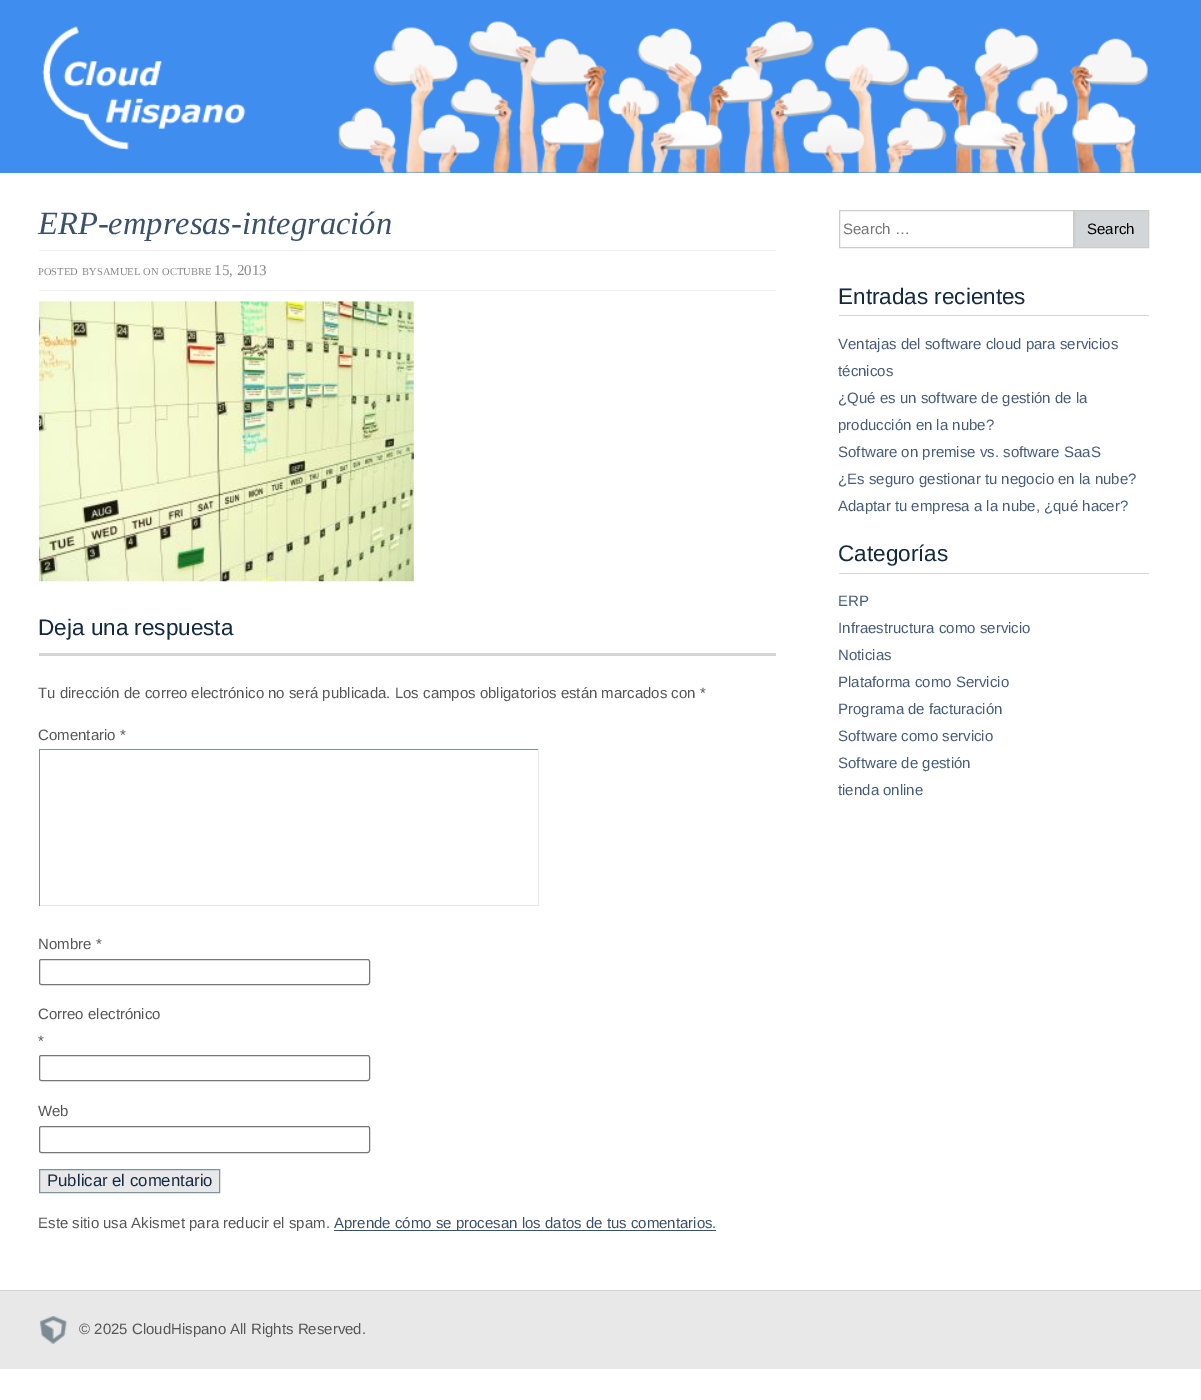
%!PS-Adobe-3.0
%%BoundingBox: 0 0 1201 1400
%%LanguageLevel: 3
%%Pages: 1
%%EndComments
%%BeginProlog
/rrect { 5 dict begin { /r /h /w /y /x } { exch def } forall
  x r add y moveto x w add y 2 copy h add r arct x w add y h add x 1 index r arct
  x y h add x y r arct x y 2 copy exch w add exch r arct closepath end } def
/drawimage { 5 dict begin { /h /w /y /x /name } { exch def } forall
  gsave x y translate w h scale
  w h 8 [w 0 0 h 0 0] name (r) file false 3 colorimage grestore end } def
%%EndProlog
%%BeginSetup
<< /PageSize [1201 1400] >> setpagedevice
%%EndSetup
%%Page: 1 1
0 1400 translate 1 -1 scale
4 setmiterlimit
1 setgray
0 0 1201 1400 rectfill
0.247 0.553 0.937 setrgbcolor
0 0 1201 173 rectfill
(images/1.raw) 338 21 810 152 drawimage
(images/2.raw) 42 26 204 124 drawimage
0.933 setgray
39 250 737 1 rectfill
39 290 737 1 rectfill
(images/3.raw) 38 301 376 281 drawimage
0.824 0.839 0.847 setrgbcolor
39 653 737 3 rectfill
0.494 0.573 0.62 setrgbcolor
39 749 500 1 rectfill
0.91 setgray
538 749 1 157 rectfill
39 905 500 1 rectfill
0.494 0.573 0.62 setrgbcolor
39 749 1 157 rectfill
0.463 setgray
39.5 959.5 330 25 2 rrect stroke
39.5 1055.5 330 25 2 rrect stroke
39.5 1126.5 330 26 2 rrect stroke
0.91 setgray
newpath 39.5 1169.5 moveto 219.5 1169.5 lineto 219.5 1192.5 lineto 39.5 1192.5 lineto closepath gsave fill grestore
0.494 0.573 0.62 setrgbcolor
stroke
0.231 0.314 0.42 setrgbcolor
334 1230 382 1 rectfill
0.8 setgray
839.5 210.5 234 37 rectstroke
0.824 0.839 0.847 setrgbcolor
newpath 1074.5 210.5 moveto 1148.5 210.5 lineto 1148.5 247.5 lineto 1074.5 247.5 lineto closepath gsave fill grestore
0.8 setgray
stroke
0.824 0.839 0.847 setrgbcolor
839 315 310 1 rectfill
839 573 310 1 rectfill
0.91 setgray
0 1291 1201 78 rectfill
0.824 0.839 0.847 setrgbcolor
0 1290 1201 1 rectfill
(images/4.raw) 39 1316 28 28 drawimage
/LiberationSerif-Italic [32.5 0 0 -32.5 0 0] selectfont
0.231 0.314 0.42 setrgbcolor
38 234 moveto (ERP-empresas-integración) show
/LiberationSerif-Regular [10.5 0 0 -10.5 0 0] selectfont
0.537 setgray
38 275 moveto (POSTED) show
82 275 moveto (BY) show
97 275 moveto (SAMUEL) show
143 275 moveto (ON) show
162 275 moveto (OCTUBRE) show
/LiberationSerif-Regular [15 0 0 -15 0 0] selectfont
214 275 moveto (15, 2013) show
/LiberationSans-Regular [22.5 0 0 -22.5 0 0] selectfont
0.082 0.161 0.259 setrgbcolor
38 635 moveto (Deja una respuesta) show
/LiberationSans-Regular [15 0 0 -15 0 0] selectfont
0.337 setgray
38 698 moveto (Tu dirección de correo electrónico no será publicada. Los campos obligatorios están marcados con *) show
38 740 moveto (Comentario *) show
38 949 moveto (Nombre *) show
38 1019 moveto (Correo electrónico) show
38 1046 moveto (*) show
38 1116 moveto (Web) show
/LiberationSans-Regular [16.75 0 0 -16.75 0 0] selectfont
0.082 0.161 0.259 setrgbcolor
47 1186 moveto (Publicar el comentario) show
/LiberationSans-Regular [15 0 0 -15 0 0] selectfont
0.337 setgray
38 1228 moveto (Este sitio usa Akismet para reducir el spam.) show
0.231 0.314 0.42 setrgbcolor
334 1228 moveto (Aprende cómo se procesan los datos de tus comentarios.) show
0.459 setgray
843 234 moveto (Search …) show
0 setgray
1087 234 moveto (Search) show
/LiberationSans-Regular [22.5 0 0 -22.5 0 0] selectfont
0.082 0.161 0.259 setrgbcolor
838 304 moveto (Entradas recientes) show
/LiberationSans-Regular [15 0 0 -15 0 0] selectfont
0.275 0.361 0.475 setrgbcolor
838 349 moveto (Ventajas del software cloud para servicios) show
838 376 moveto (técnicos) show
838 403 moveto (¿Qué es un software de gestión de la) show
838 430 moveto (producción en la nube?) show
838 457 moveto (Software on premise vs. software SaaS) show
838 484 moveto (¿Es seguro gestionar tu negocio en la nube?) show
838 511 moveto (Adaptar tu empresa a la nube, ¿qué hacer?) show
/LiberationSans-Regular [22.5 0 0 -22.5 0 0] selectfont
0.082 0.161 0.259 setrgbcolor
838 561 moveto (Categorías) show
/LiberationSans-Regular [15 0 0 -15 0 0] selectfont
0.275 0.361 0.475 setrgbcolor
838 606 moveto (ERP) show
838 633 moveto (Infraestructura como servicio) show
838 660 moveto (Noticias) show
838 687 moveto (Plataforma como Servicio) show
838 714 moveto (Programa de facturación) show
838 741 moveto (Software como servicio) show
838 768 moveto (Software de gestión) show
838 795 moveto (tienda online) show
0.337 setgray
79 1334 moveto (© 2025 CloudHispano All Rights Reserved.) show
showpage
%%EOF
